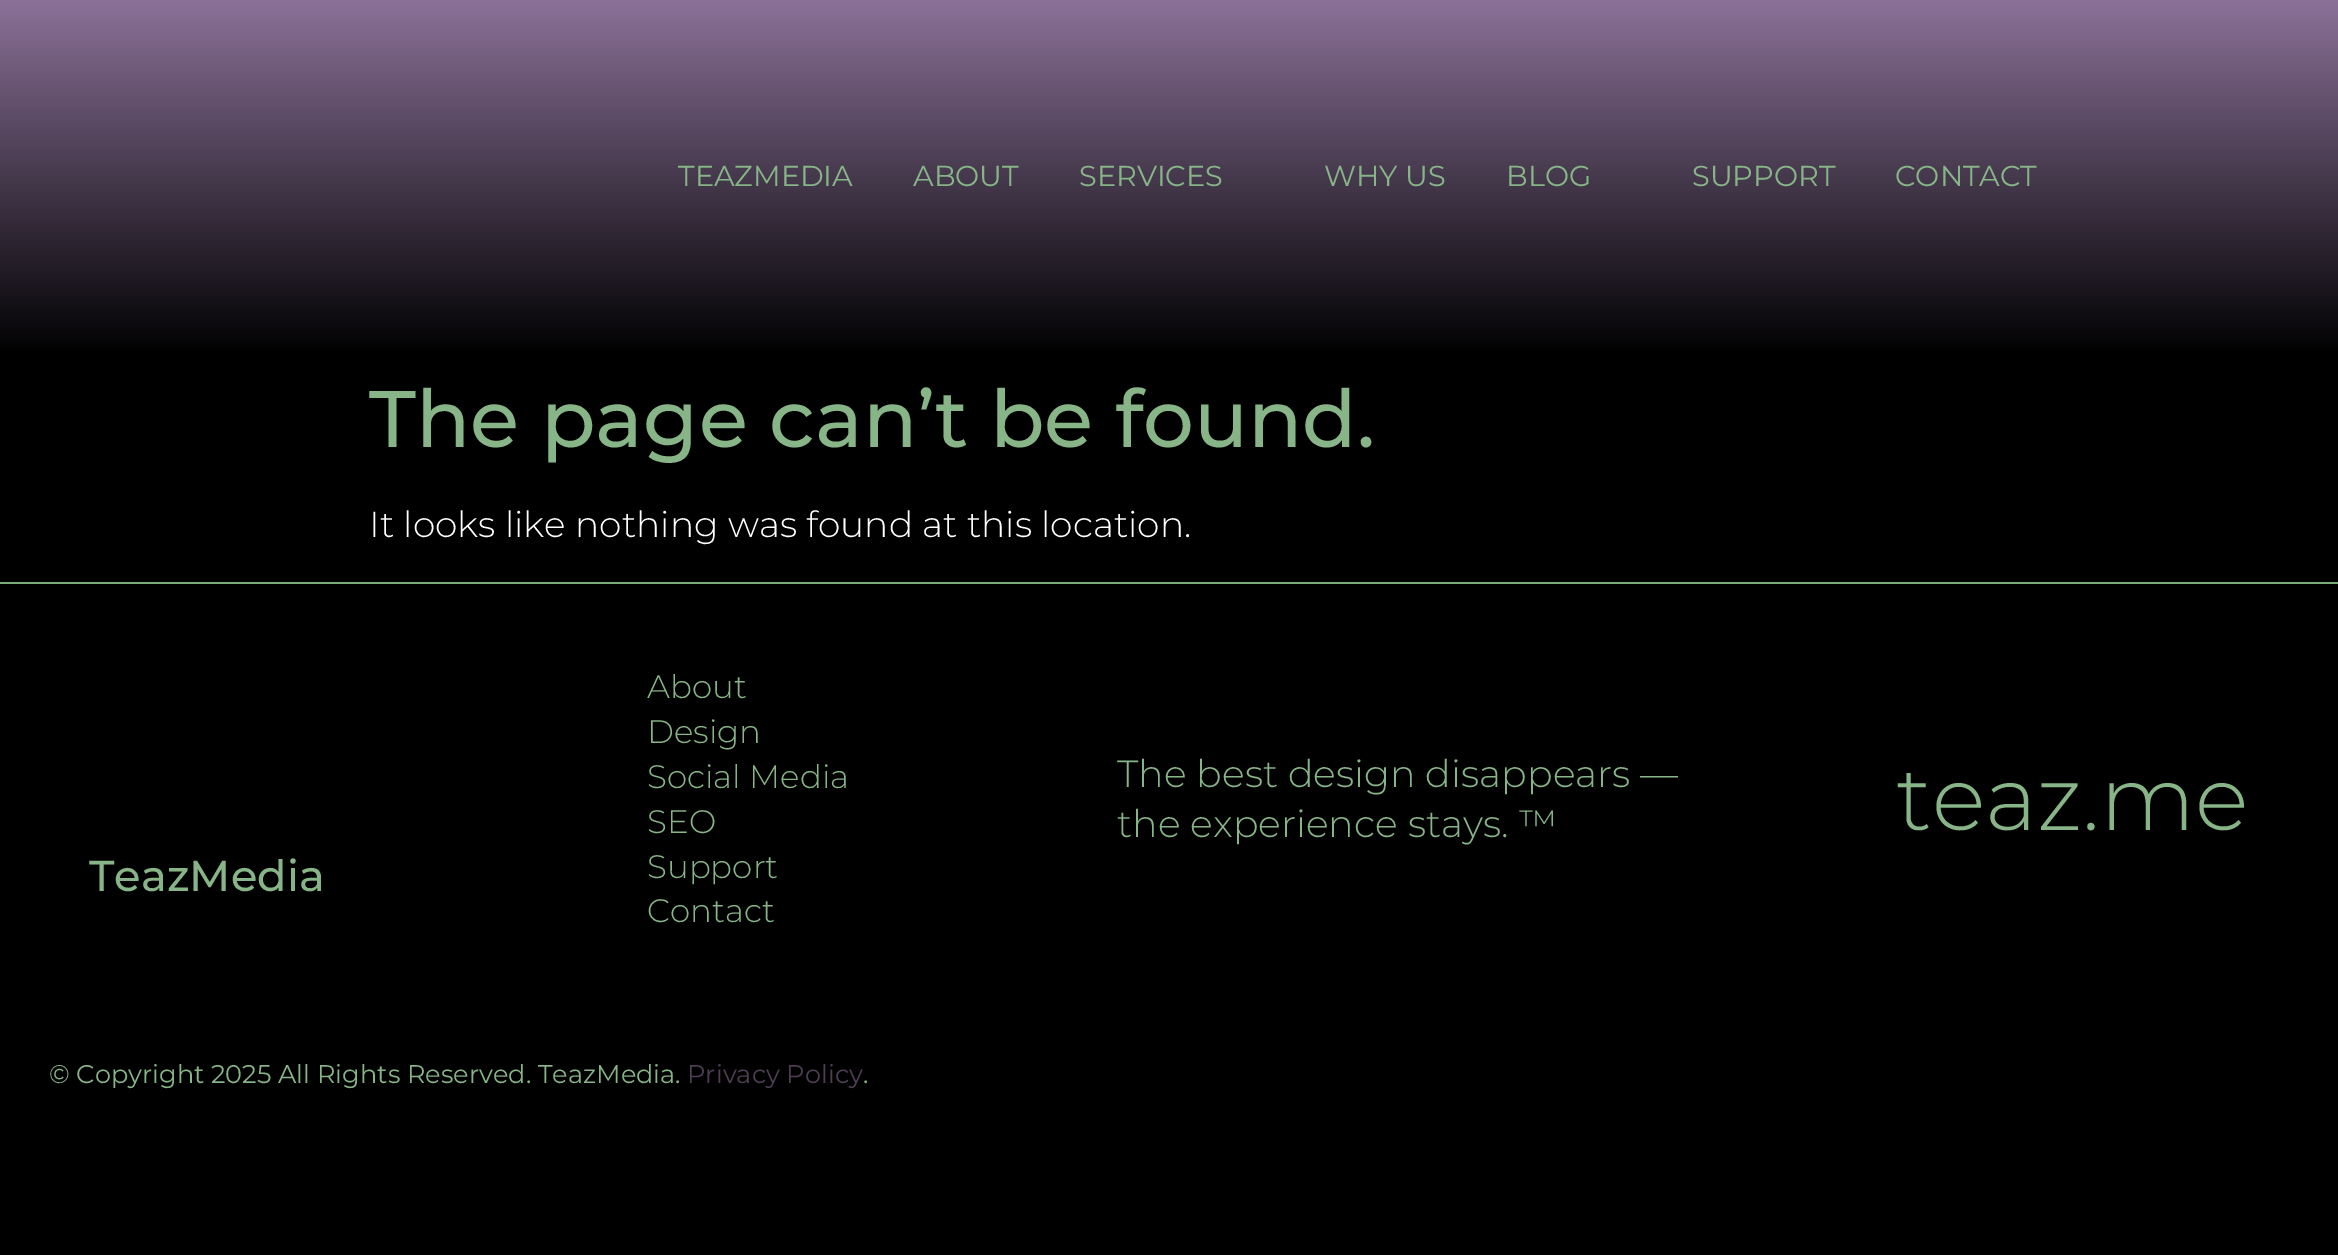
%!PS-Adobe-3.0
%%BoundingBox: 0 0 2338 1255
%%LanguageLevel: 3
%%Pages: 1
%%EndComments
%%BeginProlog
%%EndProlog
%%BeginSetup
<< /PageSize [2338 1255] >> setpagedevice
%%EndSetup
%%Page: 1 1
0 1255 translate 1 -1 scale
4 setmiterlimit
0 setgray
0 0 2338 1255 rectfill
gsave newpath 0 0 moveto 2338 0 lineto 2338 350 lineto 0 350 lineto closepath clip newpath
<< /ShadingType 2 /ColorSpace /DeviceRGB /Coords [1169 0 1169 356] /Extend [true true] /Function << /FunctionType 2 /Domain [0 1] /C0 [0.545 0.443 0.596] /C1 [0 0 0] /N 1 >> >> shfill grestore
0.471 0.671 0.471 setrgbcolor
0 582 2338 2 rectfill
/Montserrat-Regular [28.75 0 0 -28.75 0 0] selectfont
0.533 0.71 0.533 setrgbcolor
678 186 moveto (TEAZMEDIA) show
913 186 moveto (ABOUT) show
1079 186 moveto (SERVICES) show
1324 186 moveto (WHY US) show
1506 186 moveto (BLOG) show
1692 186 moveto (SUPPORT) show
1895 186 moveto (CONTACT) show
/Montserrat-Medium [80 0 0 -80 0 0] selectfont
369 447 moveto (The page can’t be found.) show
/Montserrat-Light [36 0 0 -36 0 0] selectfont
1 setgray
369 537 moveto (It looks like nothing was found at this location.) show
/Montserrat-Light [32.5 0 0 -32.5 0 0] selectfont
0.533 0.71 0.533 setrgbcolor
647 698 moveto (About) show
647 743 moveto (Design) show
647 788 moveto (Social Media) show
647 833 moveto (SEO) show
647 878 moveto (Support) show
647 922 moveto (Contact) show
/Montserrat-Light [38 0 0 -38 0 0] selectfont
1117 787 moveto (The best design disappears —) show
1117 837 moveto (the experience stays. ™) show
/Montserrat-Light [89.5 0 0 -89.5 0 0] selectfont
1896 830 moveto (teaz.me) show
/Montserrat-Medium [43.25 0 0 -43.25 0 0] selectfont
89 891 moveto (TeazMedia) show
/Montserrat-Regular [25.6 0 0 -25.6 0 0] selectfont
49 1083 moveto (© Copyright 2025 All Rights Reserved. TeazMedia.) show
0.306 0.243 0.333 setrgbcolor
687 1083 moveto (Privacy Policy) show
0.533 0.71 0.533 setrgbcolor
863 1083 moveto (.) show
showpage
%%EOF
